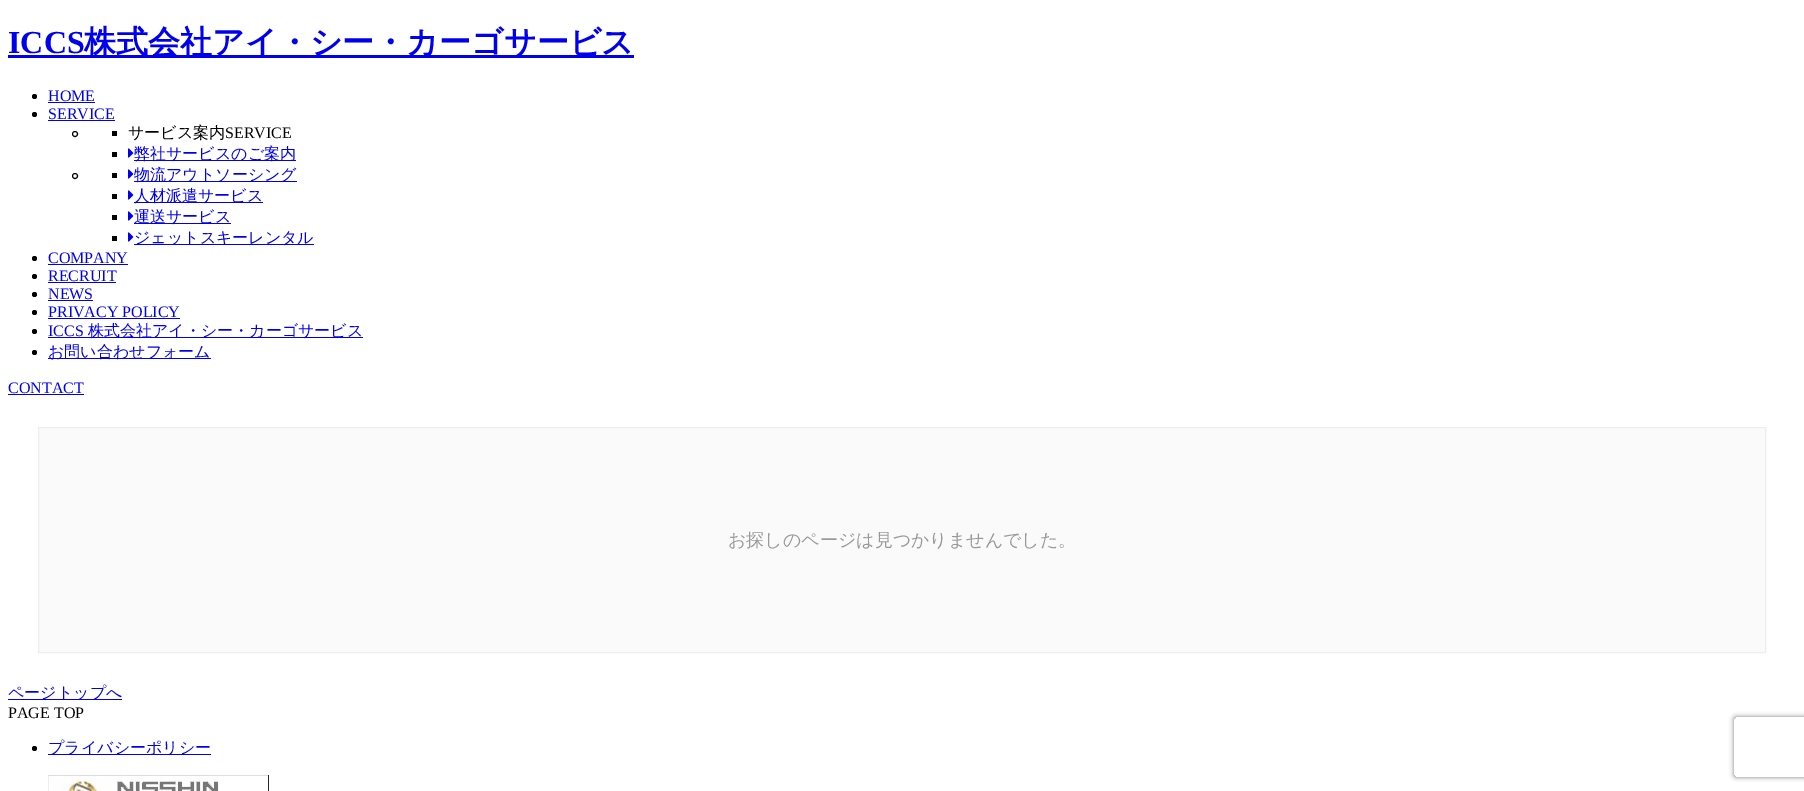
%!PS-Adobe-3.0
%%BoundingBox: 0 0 1804 791
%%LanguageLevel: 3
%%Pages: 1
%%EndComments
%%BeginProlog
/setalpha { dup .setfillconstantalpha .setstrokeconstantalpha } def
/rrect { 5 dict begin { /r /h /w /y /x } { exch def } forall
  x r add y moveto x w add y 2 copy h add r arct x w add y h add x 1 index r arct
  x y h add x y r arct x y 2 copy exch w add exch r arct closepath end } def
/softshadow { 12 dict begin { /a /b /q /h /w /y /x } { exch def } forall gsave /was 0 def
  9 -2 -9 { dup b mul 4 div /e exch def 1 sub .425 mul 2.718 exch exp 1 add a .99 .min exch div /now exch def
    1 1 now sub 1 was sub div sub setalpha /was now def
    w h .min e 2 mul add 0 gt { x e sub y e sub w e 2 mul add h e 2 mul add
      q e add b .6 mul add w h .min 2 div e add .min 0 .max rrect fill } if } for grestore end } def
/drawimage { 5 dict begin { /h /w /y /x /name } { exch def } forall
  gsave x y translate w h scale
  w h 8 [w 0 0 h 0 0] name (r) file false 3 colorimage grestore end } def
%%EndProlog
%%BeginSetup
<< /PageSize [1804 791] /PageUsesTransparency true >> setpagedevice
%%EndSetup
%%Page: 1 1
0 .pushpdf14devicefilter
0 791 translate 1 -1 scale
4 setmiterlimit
1 setgray
0 0 1804 791 rectfill
0 0 0.933 setrgbcolor
8 55 626 3 rectfill
0 setgray
newpath 34.5 96.5 2.5 0 360 arc closepath fill
0 0 0.933 setrgbcolor
48 102 47 1 rectfill
0 setgray
newpath 34.5 114.5 2.5 0 360 arc closepath fill
0 0 0.933 setrgbcolor
48 120 67 1 rectfill
0 setgray
newpath 75 134 2.5 0 360 arc closepath stroke
112 131 5 5 rectfill
112 152 5 5 rectfill
(images/1.raw) 128 148 6 10 drawimage
0 0 0.933 setrgbcolor
134 160 162 1 rectfill
0 setgray
newpath 75 176 2.5 0 360 arc closepath stroke
112 173 5 5 rectfill
(images/1.raw) 128 169 6 10 drawimage
0 0 0.933 setrgbcolor
134 181 163 1 rectfill
0 setgray
112 194 5 5 rectfill
(images/1.raw) 128 190 6 10 drawimage
0 0 0.933 setrgbcolor
134 202 129 1 rectfill
0 setgray
112 215 5 5 rectfill
(images/1.raw) 128 211 6 10 drawimage
0 0 0.933 setrgbcolor
134 223 97 1 rectfill
0 setgray
112 236 5 5 rectfill
(images/1.raw) 128 232 6 10 drawimage
0 0 0.933 setrgbcolor
134 244 180 1 rectfill
0 setgray
newpath 34.5 258.5 2.5 0 360 arc closepath fill
0 0 0.933 setrgbcolor
48 264 80 1 rectfill
0 setgray
newpath 34.5 276.5 2.5 0 360 arc closepath fill
0 0 0.933 setrgbcolor
48 282 68 1 rectfill
0 setgray
newpath 34.5 294.5 2.5 0 360 arc closepath fill
0 0 0.933 setrgbcolor
48 300 45 1 rectfill
0 setgray
newpath 34.5 312.5 2.5 0 360 arc closepath fill
0 0 0.933 setrgbcolor
48 318 132 1 rectfill
0 setgray
newpath 34.5 331.5 2.5 0 360 arc closepath fill
0 0 0.933 setrgbcolor
48 337 315 1 rectfill
0 setgray
newpath 34.5 352.5 2.5 0 360 arc closepath fill
0 0 0.933 setrgbcolor
48 358 163 1 rectfill
8 394 76 1 rectfill
0.98 setgray
newpath 38.5 427.5 moveto 1765.5 427.5 lineto 1765.5 652.5 lineto 38.5 652.5 lineto closepath gsave fill grestore
0.933 setgray
stroke
0 0 0.933 setrgbcolor
8 699 114 1 rectfill
0 setgray
newpath 34.5 748.5 2.5 0 360 arc closepath fill
0 0 0.933 setrgbcolor
48 754 163 1 rectfill
(images/2.raw) 48 775 221 16 drawimage
gsave
newpath 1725 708 moveto 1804 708 lineto 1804 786 lineto 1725 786 lineto closepath 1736 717 moveto 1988 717 lineto 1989 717 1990 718 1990 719 curveto 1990 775 lineto 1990 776 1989 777 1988 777 curveto 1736 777 lineto 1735 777 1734 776 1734 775 curveto 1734 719 lineto 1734 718 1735 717 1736 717 curveto closepath eoclip newpath
0.502 setgray
1734 717 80 60 2 2.5 1 softshadow
grestore
/LiberationSerif-Bold [32 0 0 -32 0 0] selectfont
8 53 moveto (ICCS) show
/WenQuanYiZenHei-Bold [32 0 0 -32 0 0] selectfont
84 53 moveto (株式会社アイ・シー・カーゴサービス) show
/LiberationSerif-Regular [16 0 0 -16 0 0] selectfont
48 101 moveto (HOME) show
48 119 moveto (SERVICE) show
/WenQuanYiZenHei-Medium [16 0 0 -16 0 0] selectfont
0 setgray
128 138 moveto (サービス案内) show
/LiberationSerif-Regular [16 0 0 -16 0 0] selectfont
225 138 moveto (SERVICE) show
/WenQuanYiZenHei-Medium [16 0 0 -16 0 0] selectfont
0 0 0.933 setrgbcolor
134 159 moveto (弊社サービスのご案内) show
134 180 moveto (物流アウトソーシング) show
134 201 moveto (人材派遣サービス) show
134 222 moveto (運送サービス) show
134 243 moveto (ジェットスキーレンタル) show
/LiberationSerif-Regular [16 0 0 -16 0 0] selectfont
48 263 moveto (COMPANY) show
48 281 moveto (RECRUIT) show
48 299 moveto (NEWS) show
48 317 moveto (PRIVACY POLICY) show
48 336 moveto (ICCS) show
/WenQuanYiZenHei-Medium [16 0 0 -16 0 0] selectfont
88 336 moveto (株式会社アイ・シー・カーゴサービス) show
48 357 moveto (お問い合わせフォーム) show
/LiberationSerif-Regular [16 0 0 -16 0 0] selectfont
8 393 moveto (CONTACT) show
/WenQuanYiZenHei-Medium [18 0 0 -18 0 0] selectfont
0.6 setgray
728 546 moveto (お探しのページは見つかりませんでした。) show
/WenQuanYiZenHei-Medium [16 0 0 -16 0 0] selectfont
0 0 0.933 setrgbcolor
8 698 moveto (ページトップへ) show
/LiberationSerif-Regular [16 0 0 -16 0 0] selectfont
0 setgray
8 718 moveto (PAGE TOP) show
/WenQuanYiZenHei-Medium [16 0 0 -16 0 0] selectfont
0 0 0.933 setrgbcolor
48 753 moveto (プライバシーポリシー) show
.poppdf14devicefilter showpage
%%EOF
